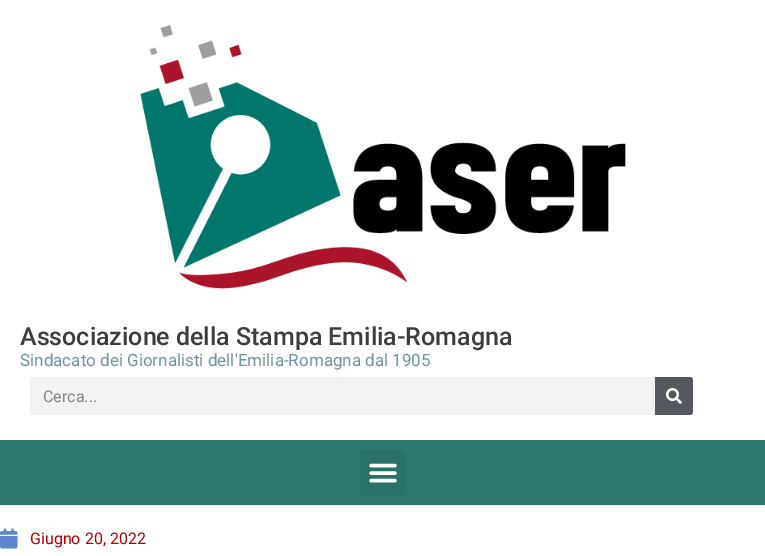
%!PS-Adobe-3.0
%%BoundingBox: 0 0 765 556
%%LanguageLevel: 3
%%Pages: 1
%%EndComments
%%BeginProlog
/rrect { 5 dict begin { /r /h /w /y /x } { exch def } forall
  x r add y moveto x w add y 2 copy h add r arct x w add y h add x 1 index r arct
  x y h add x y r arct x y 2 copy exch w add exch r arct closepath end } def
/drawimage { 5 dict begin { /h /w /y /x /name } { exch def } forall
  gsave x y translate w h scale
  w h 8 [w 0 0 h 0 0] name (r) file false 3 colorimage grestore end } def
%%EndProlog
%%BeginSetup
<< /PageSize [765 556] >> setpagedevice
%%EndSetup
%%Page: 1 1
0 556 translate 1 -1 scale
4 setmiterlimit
1 setgray
0 0 765 556 rectfill
(images/1.raw) 140 25 486 264 drawimage
0.945 0.949 0.953 setrgbcolor
30 377 663 38 3 rrect fill
0.329 0.349 0.373 setrgbcolor
newpath 655 377 moveto 690 377 lineto 691.5 377 693 378.5 693 380 curveto 693 412 lineto 693 413.5 691.5 415 690 415 curveto 655 415 lineto closepath fill
(images/2.raw) 666 388 16 16 drawimage
0.173 0.471 0.424 setrgbcolor
0 440 765 65 rectfill
0.165 0.447 0.404 setrgbcolor
360 450 45 45 rectfill
(images/3.raw) 369 463 28 20 drawimage
(images/4.raw) 0 528 18 21 drawimage
/Roboto-Medium [25 0 0 -25 0 0] selectfont
0.239 setgray
20 345 moveto (Associazione della Stampa Emilia-Romagna) show
/Roboto-Regular [17 0 0 -17 0 0] selectfont
0.427 0.584 0.655 setrgbcolor
20 366 moveto (Sindacato dei Giornalisti dell'Emilia-Romagna dal 1905) show
/Roboto-Regular [16 0 0 -16 0 0] selectfont
0.522 0.522 0.525 setrgbcolor
43 402 moveto (Cerca...) show
0.702 0 0 setrgbcolor
30 544 moveto (Giugno 20, 2022) show
showpage
%%EOF
